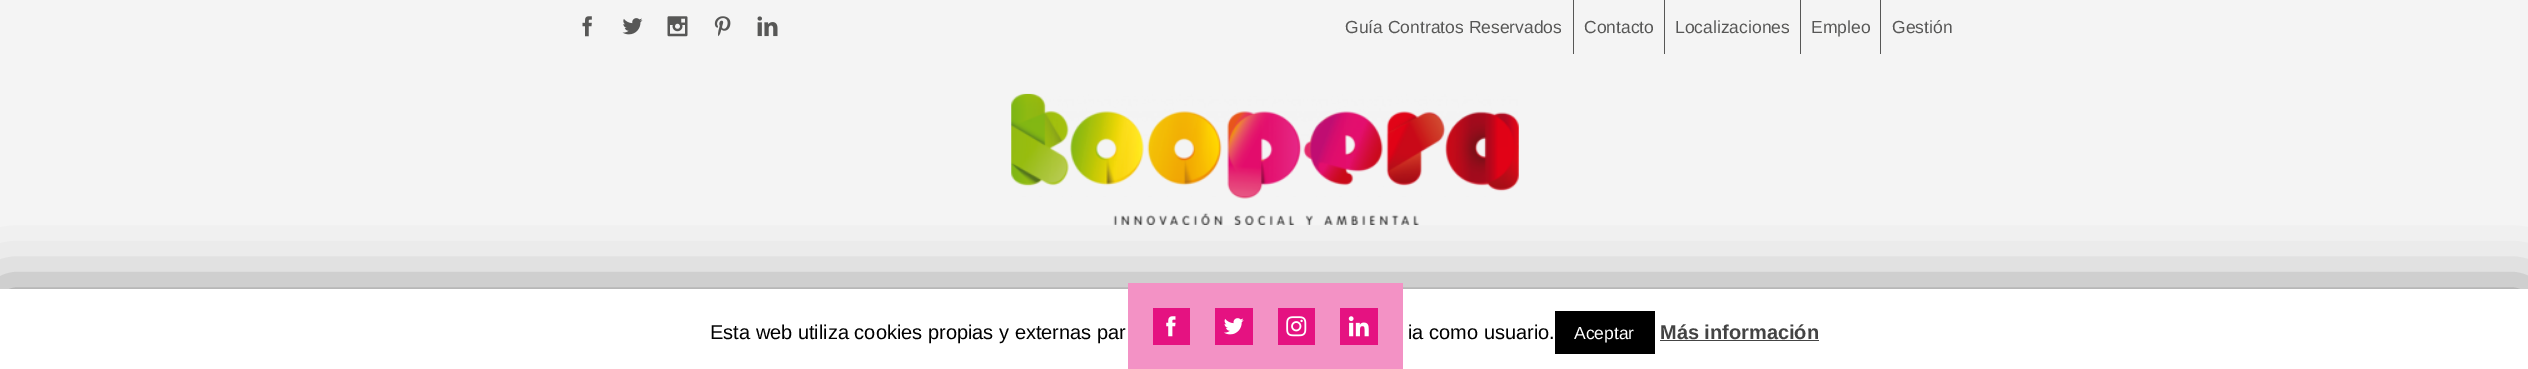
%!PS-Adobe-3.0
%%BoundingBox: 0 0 2528 369
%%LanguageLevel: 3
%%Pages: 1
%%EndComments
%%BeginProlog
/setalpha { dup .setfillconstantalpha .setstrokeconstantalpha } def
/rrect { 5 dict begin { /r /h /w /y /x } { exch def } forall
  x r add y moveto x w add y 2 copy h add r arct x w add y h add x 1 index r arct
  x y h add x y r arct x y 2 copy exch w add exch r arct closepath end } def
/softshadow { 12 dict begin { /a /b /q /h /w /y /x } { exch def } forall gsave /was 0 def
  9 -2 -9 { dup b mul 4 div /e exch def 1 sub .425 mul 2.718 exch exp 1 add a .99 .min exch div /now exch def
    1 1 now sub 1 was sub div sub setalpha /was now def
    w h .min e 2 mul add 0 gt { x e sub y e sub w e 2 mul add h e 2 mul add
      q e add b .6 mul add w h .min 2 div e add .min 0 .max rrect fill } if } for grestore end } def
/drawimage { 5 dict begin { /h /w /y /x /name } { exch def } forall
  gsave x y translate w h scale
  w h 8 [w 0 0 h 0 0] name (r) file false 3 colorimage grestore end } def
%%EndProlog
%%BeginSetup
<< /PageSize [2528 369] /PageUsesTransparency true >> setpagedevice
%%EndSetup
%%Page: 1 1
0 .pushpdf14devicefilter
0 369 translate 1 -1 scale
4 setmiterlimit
0.957 setgray
0 0 2528 369 rectfill
(images/1.raw) 582 16 10 21 drawimage
(images/2.raw) 622 18 21 17 drawimage
(images/3.raw) 667 16 21 21 drawimage
(images/4.raw) 714 16 17 21 drawimage
(images/5.raw) 757 16 21 21 drawimage
0.341 0.341 0.337 setrgbcolor
1573 0 1 54 rectfill
1664 0 1 54 rectfill
1800 0 1 54 rectfill
1880 0 1 54 rectfill
(images/6.raw) 1011 93 508 132 drawimage
0 setgray
0 295 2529 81 0 31 0.5 softshadow
1 setgray
0 289 2528 80 rectfill
0.953 0.573 0.773 setrgbcolor
1128 283 275 86 rectfill
0.898 0.071 0.506 setrgbcolor
1153 308 37 37 rectfill
(images/7.raw) 1166 316 10 21 drawimage
1215 308 38 37 rectfill
(images/8.raw) 1224 318 20 17 drawimage
1278 308 37 37 rectfill
(images/9.raw) 1286 316 21 21 drawimage
1340 308 38 37 rectfill
(images/10.raw) 1348 316 21 21 drawimage
0 setgray
1555 311 100 43 rectfill
0.267 setgray
1660 340 159 1 rectfill
/LiberationSans-Regular [17.5 0 0 -17.5 0 0] selectfont
0.341 0.341 0.337 setrgbcolor
1345 33 moveto (Guía Contratos Reservados) show
1584 33 moveto (Contacto) show
1675 33 moveto (Localizaciones) show
1811 33 moveto (Empleo) show
1892 33 moveto (Gestión) show
/LiberationSans-Regular [20 0 0 -20 0 0] selectfont
0 setgray
710 339 moveto (Esta web utiliza cookies propias y externas par) show
1408 339 moveto (ia como usuario.) show
/LiberationSans-Regular [17.5 0 0 -17.5 0 0] selectfont
1 setgray
1574 339 moveto (Aceptar) show
/LiberationSans-Bold [20 0 0 -20 0 0] selectfont
0.267 setgray
1660 339 moveto (Más información) show
.poppdf14devicefilter showpage
%%EOF
